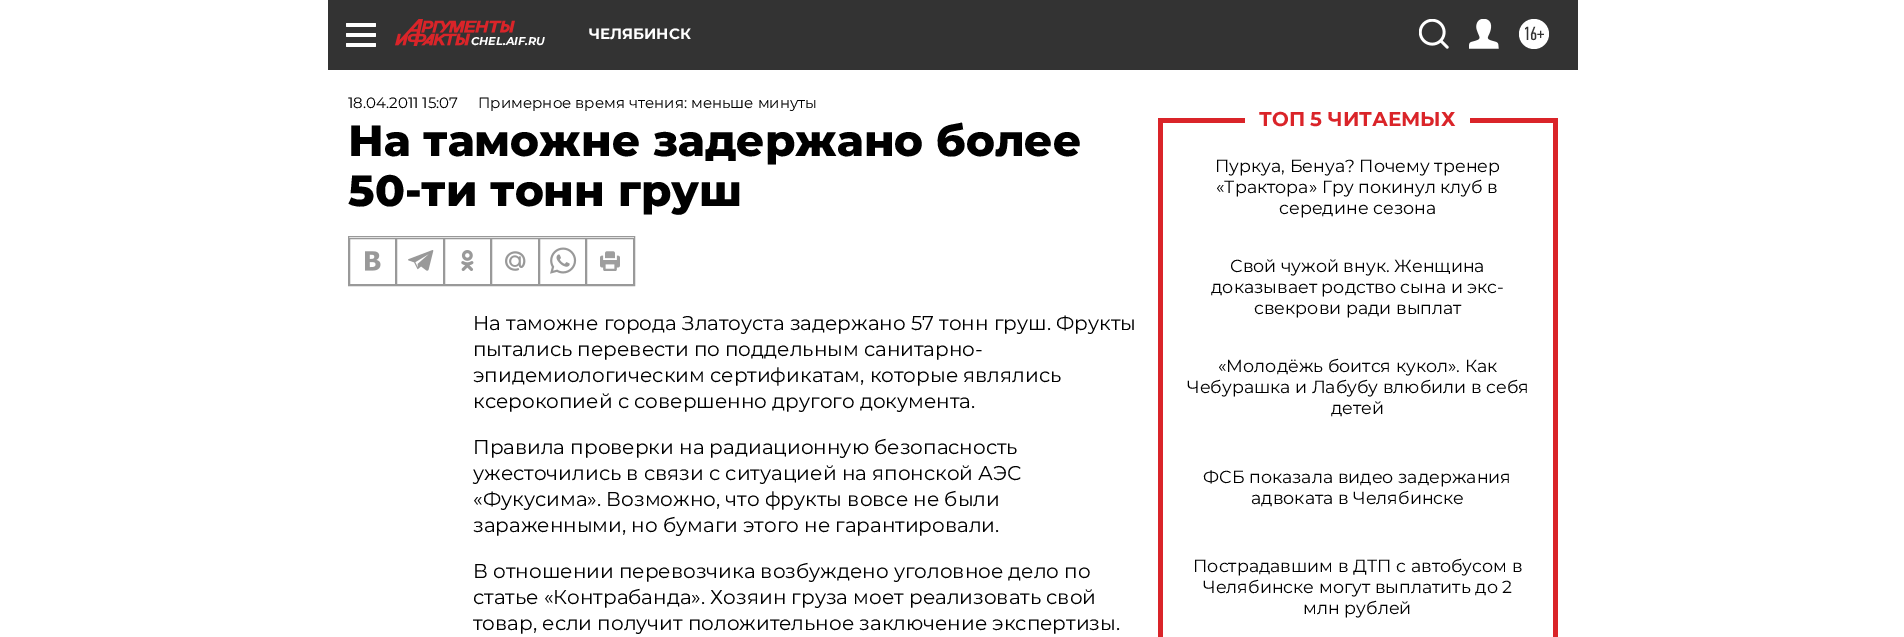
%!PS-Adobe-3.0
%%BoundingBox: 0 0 1904 637
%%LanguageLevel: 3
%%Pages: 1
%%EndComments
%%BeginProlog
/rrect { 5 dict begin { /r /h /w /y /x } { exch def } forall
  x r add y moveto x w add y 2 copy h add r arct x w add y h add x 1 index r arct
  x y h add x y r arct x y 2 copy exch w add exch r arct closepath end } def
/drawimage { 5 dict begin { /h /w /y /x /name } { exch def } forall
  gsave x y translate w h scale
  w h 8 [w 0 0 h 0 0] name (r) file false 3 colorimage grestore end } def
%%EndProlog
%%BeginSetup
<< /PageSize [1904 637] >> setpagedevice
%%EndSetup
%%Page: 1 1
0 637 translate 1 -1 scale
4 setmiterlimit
1 setgray
0 0 1904 637 rectfill
0.2 setgray
328 0 1250 70 rectfill
1 setgray
346 23 30 4 1 rrect fill
346 33 30 4 1 rrect fill
346 43 30 4 1 rrect fill
(images/1.raw) 1419 19 30 30 drawimage
(images/2.raw) 1469 19 30 30 drawimage
newpath 1534 34 15 0 360 arc closepath fill
(images/3.raw) 395 19 120 27 drawimage
0.6 setgray
348.5 236.5 286 49 rectstroke
349.5 238.5 46 46 rectstroke
(images/4.raw) 365 251 16 20 drawimage
396.5 238.5 47 46 rectstroke
(images/5.raw) 408 250 26 21 drawimage
444.5 238.5 46 46 rectstroke
(images/6.raw) 461 250 13 21 drawimage
491.5 238.5 47 46 rectstroke
(images/7.raw) 505 251 21 20 drawimage
539.5 238.5 46 46 rectstroke
(images/8.raw) 550 247 27 27 drawimage
586.5 238.5 47 46 rectstroke
(images/9.raw) 600 251 20 20 drawimage
0.855 0.141 0.161 setrgbcolor
1158 118 5 519 rectfill
1158 118 87 5 rectfill
1553 118 5 519 rectfill
1470 118 88 5 rectfill
/Montserrat-Bold [15 0 0 -15 0 0] selectfont
1 setgray
589 39 moveto (ЧЕЛЯБИНСК) show
/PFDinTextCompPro-Regular [19 0 0 -19 0 0] selectfont
0.2 setgray
1523 40 moveto (16+) show
/Montserrat-BoldItalic [11.25 0 0 -11.25 0 0] selectfont
1 setgray
471 45 moveto (CHEL.AIF.RU) show
/Montserrat-Regular [15 0 0 -15 0 0] selectfont
0 setgray
348 108 moveto (18.04.2011 15:07) show
478 108 moveto (Примерное время чтения: меньше минуты) show
/Montserrat-ExtraBold [43.75 0 0 -43.75 0 0] selectfont
348 156 moveto (На таможне задержано более) show
348 206 moveto (50-ти тонн груш) show
/Montserrat-Regular [20 0 0 -20 0 0] selectfont
473 330 moveto (На таможне города Златоуста задержано 57 тонн груш. Фрукты) show
473 356 moveto (пытались перевести по поддельным санитарно-) show
473 382 moveto (эпидемиологическим сертификатам, которые являлись) show
473 408 moveto (ксерокопией с совершенно другого документа.) show
473 454 moveto (Правила проверки на радиационную безопасность) show
473 480 moveto (ужесточились в связи с ситуацией на японской АЭС) show
473 506 moveto («Фукусима». Возможно, что фрукты вовсе не были) show
473 532 moveto (зараженными, но бумаги этого не гарантировали.) show
473 578 moveto (В отношении перевозчика возбуждено уголовное дело по) show
473 604 moveto (статье «Контрабанда». Хозяин груза моет реализовать свой) show
473 630 moveto (товар, если получит положительное заключение экспертизы.) show
/Montserrat-Bold [20 0 0 -20 0 0] selectfont
0.855 0.141 0.161 setrgbcolor
1259 126 moveto (ТОП 5 ЧИТАЕМЫХ) show
/Montserrat-Regular [17.5 0 0 -17.5 0 0] selectfont
0 setgray
1215 172 moveto (Пуркуа, Бенуа? Почему тренер) show
1216 193 moveto («Трактора» Гру покинул клуб в) show
1279 214 moveto (середине сезона) show
1230 272 moveto (Свой чужой внук. Женщина) show
1211 293 moveto (доказывает родство сына и экс-) show
1254 314 moveto (свекрови ради выплат) show
1218 372 moveto («Молодёжь боится кукол». Как) show
1187 393 moveto (Чебурашка и Лабубу влюбили в себя) show
1331 414 moveto (детей) show
1203 483 moveto (ФСБ показала видео задержания) show
1251 504 moveto (адвоката в Челябинске) show
1193 572 moveto (Пострадавшим в ДТП с автобусом в) show
1203 593 moveto (Челябинске могут выплатить до 2) show
1303 614 moveto (млн рублей) show
showpage
%%EOF
